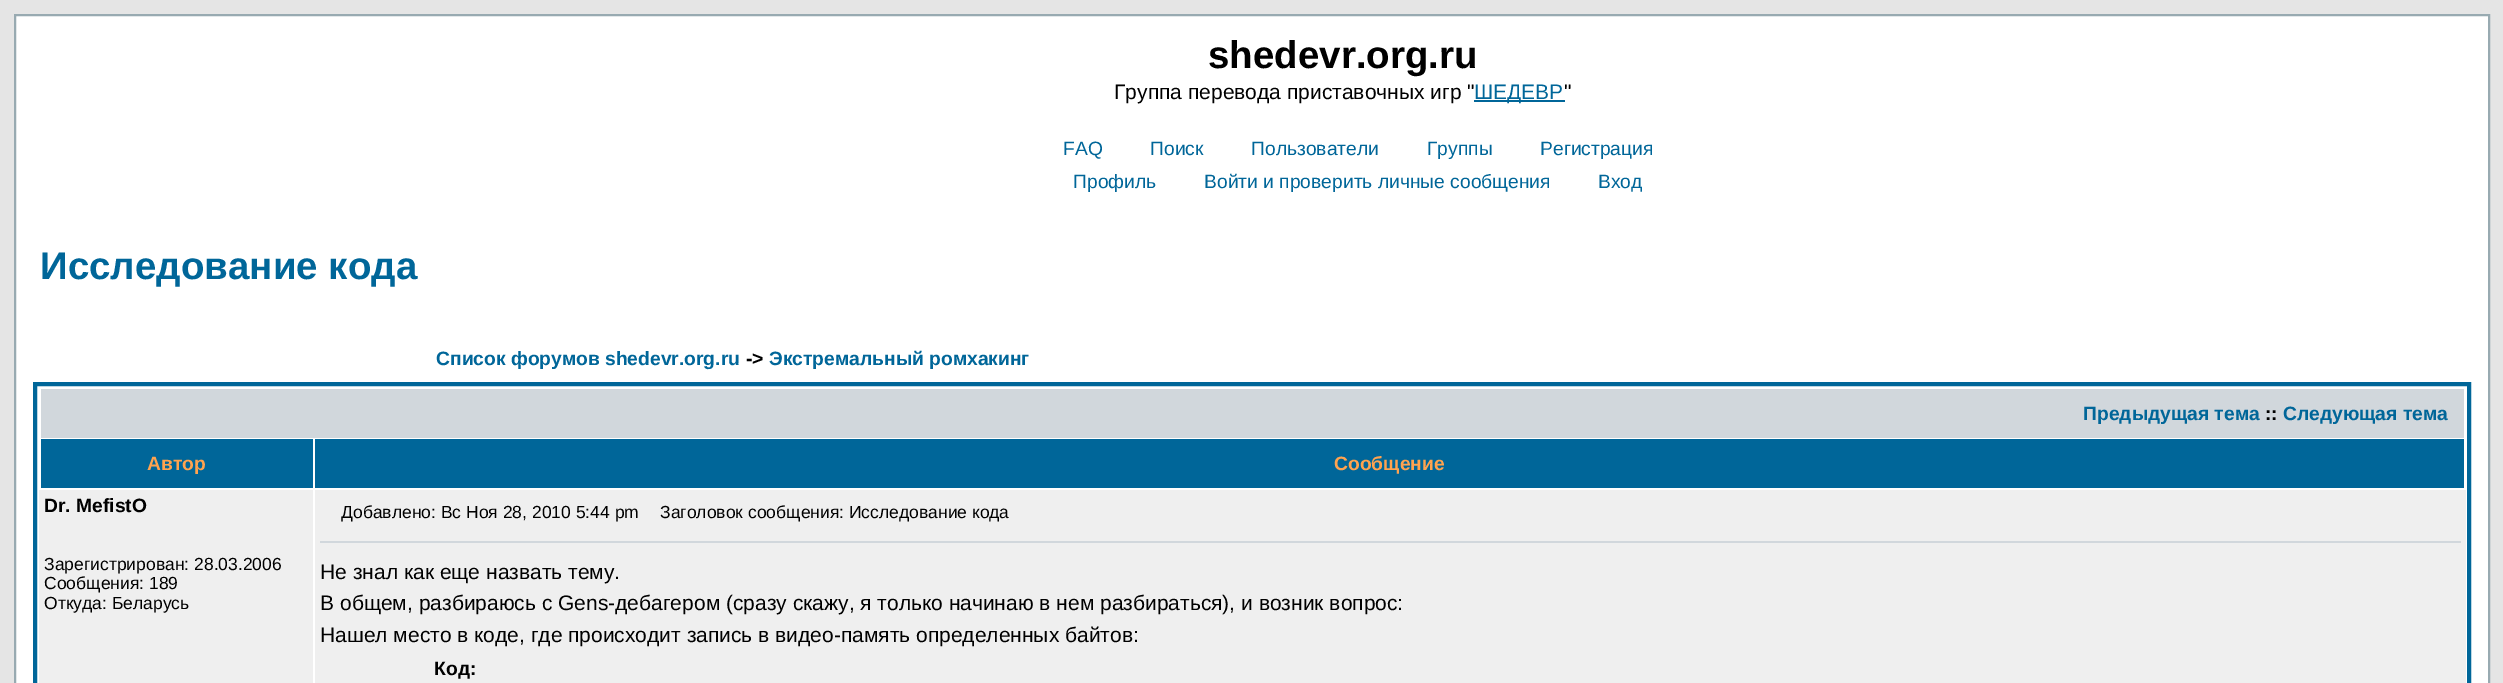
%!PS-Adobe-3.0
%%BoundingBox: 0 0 2503 683
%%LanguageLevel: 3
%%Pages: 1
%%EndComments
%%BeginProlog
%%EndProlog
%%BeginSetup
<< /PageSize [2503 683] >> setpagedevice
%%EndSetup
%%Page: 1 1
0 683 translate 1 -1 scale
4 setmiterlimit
0.898 setgray
0 0 2503 683 rectfill
1 setgray
newpath 15 15 moveto 2489 15 lineto 2489 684 lineto 15 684 lineto closepath gsave fill grestore
0.596 0.667 0.694 setrgbcolor
2 setlinewidth
stroke
0 0.4 0.6 setrgbcolor
1474 100 91 2 rectfill
4 setlinewidth
35 384 2434 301 rectstroke
0.82 0.843 0.863 setrgbcolor
41 389 2423 49 rectfill
0 0.4 0.6 setrgbcolor
41 439 272 49 rectfill
315 439 2149 49 rectfill
0.937 setgray
39 490 274 193 rectfill
315 490 2151 193 rectfill
0.82 0.843 0.863 setrgbcolor
320 541 2141 2 rectfill
/LiberationSans-Bold [38.5 0 0 -38.5 0 0] selectfont
0 setgray
1208 68 moveto (shedevr.org.ru) show
/LiberationSans-Regular [21 0 0 -21 0 0] selectfont
1114 99 moveto (Группа перевода приставочных игр ") show
0 0.4 0.6 setrgbcolor
1474 99 moveto (ШЕДЕВР) show
0 setgray
1564 99 moveto (") show
/LiberationSans-Regular [19.25 0 0 -19.25 0 0] selectfont
0 0.4 0.6 setrgbcolor
1063 155 moveto (FAQ) show
1150 155 moveto (Поиск) show
1251 155 moveto (Пользователи) show
1427 155 moveto (Группы) show
1540 155 moveto (Регистрация) show
1073 188 moveto (Профиль) show
1204 188 moveto (Войти и проверить личные сообщения) show
1598 188 moveto (Вход) show
/LiberationSans-Bold [38.5 0 0 -38.5 0 0] selectfont
40 279 moveto (Исследование кода) show
/LiberationSans-Bold [19.25 0 0 -19.25 0 0] selectfont
436 365 moveto (Список форумов shedevr.org.ru) show
0 setgray
746 365 moveto (->) show
0 0.4 0.6 setrgbcolor
769 365 moveto (Экстремальный ромхакинг) show
2083 420 moveto (Предыдущая тема) show
0 setgray
2265 420 moveto (::) show
0 0.4 0.6 setrgbcolor
2283 420 moveto (Следующая тема) show
1 0.639 0.31 setrgbcolor
147 470 moveto (Автор) show
1334 470 moveto (Сообщение) show
0 setgray
44 512 moveto (Dr. MefistO) show
/LiberationSans-Regular [17.5 0 0 -17.5 0 0] selectfont
44 570 moveto (Зарегистрирован: 28.03.2006) show
44 589 moveto (Сообщения: 189) show
44 609 moveto (Откуда: Беларусь) show
341 518 moveto (Добавлено: Вс Ноя 28, 2010 5:44 pm) show
660 518 moveto (Заголовок сообщения: Исследование кода) show
/LiberationSans-Regular [21 0 0 -21 0 0] selectfont
320 579 moveto (Не знал как еще назвать тему.) show
320 610 moveto (В общем, разбираюсь с Gens-дебагером \(сразу скажу, я только начинаю в нем разбираться\), и возник вопрос:) show
320 642 moveto (Нашел место в коде, где происходит запись в видео-память определенных байтов:) show
/LiberationSans-Bold [19.25 0 0 -19.25 0 0] selectfont
434 675 moveto (Код:) show
showpage
%%EOF
